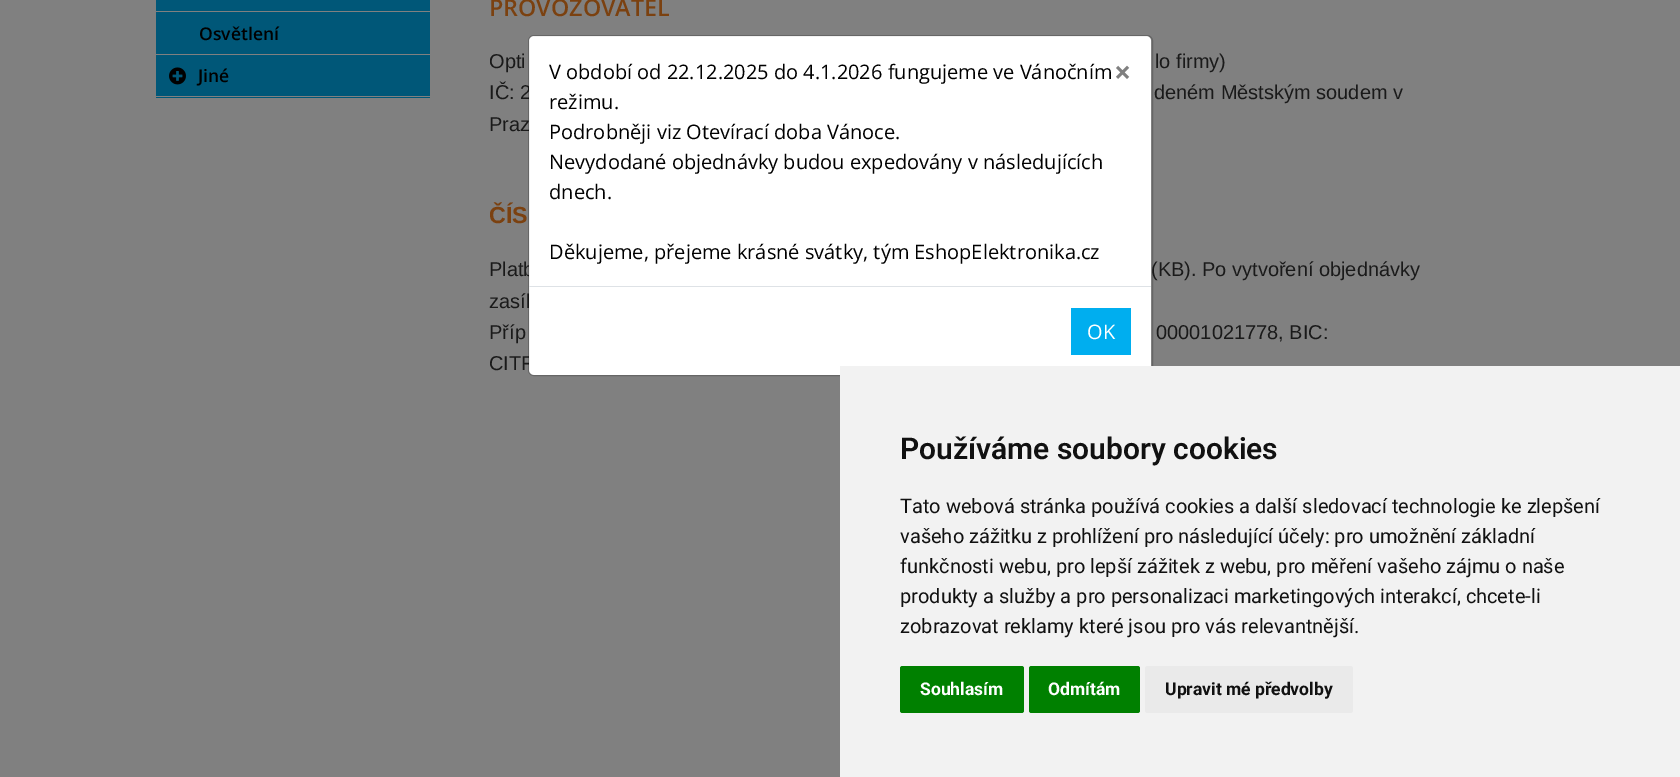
%!PS-Adobe-3.0
%%BoundingBox: 0 0 1680 777
%%LanguageLevel: 3
%%Pages: 1
%%EndComments
%%BeginProlog
/setalpha { dup .setfillconstantalpha .setstrokeconstantalpha } def
/rrect { 5 dict begin { /r /h /w /y /x } { exch def } forall
  x r add y moveto x w add y 2 copy h add r arct x w add y h add x 1 index r arct
  x y h add x y r arct x y 2 copy exch w add exch r arct closepath end } def
/drawimage { 5 dict begin { /h /w /y /x /name } { exch def } forall
  gsave x y translate w h scale
  w h 8 [w 0 0 h 0 0] name (r) file false 3 colorimage grestore end } def
%%EndProlog
%%BeginSetup
<< /PageSize [1680 777] /PageUsesTransparency true >> setpagedevice
%%EndSetup
%%Page: 1 1
0 .pushpdf14devicefilter
0 777 translate 1 -1 scale
4 setmiterlimit
0.502 setgray
0 0 1680 777 rectfill
0 0.341 0.471 setrgbcolor
156 0 274 98 rectfill
0.502 setgray
156 11 274 1 rectfill
156 54 274 1 rectfill
156 96 274 1 rectfill
(images/1.raw) 169 67 17 18 drawimage
/OpenSans-SemiBold [17.5 0 0 -17.5 0 0] selectfont
0 setgray
199 40 moveto (Osvětlení) show
198 82 moveto (Jiné) show
/OpenSans-SemiBold [23.25 0 0 -23.25 0 0] selectfont
0.482 0.255 0.063 setrgbcolor
489 16 moveto (PROVOZOVATEL) show
/LiberationSans-Regular [20 0 0 -20 0 0] selectfont
0.102 setgray
489 68 moveto (Opti) show
1155 68 moveto (lo firmy\)) show
489 99 moveto (IČ: 2) show
1154 99 moveto (deném Městským soudem v) show
489 131 moveto (Praz) show
/LiberationSans-Bold [23.25 0 0 -23.25 0 0] selectfont
0.482 0.255 0.063 setrgbcolor
489 223 moveto (ČÍS) show
/LiberationSans-Regular [20 0 0 -20 0 0] selectfont
0.102 setgray
489 276 moveto (Platb) show
1151 276 moveto (\(KB\). Po vytvoření objednávky) show
489 308 moveto (zasíl) show
489 339 moveto (Příp) show
1156 339 moveto (00001021778, BIC:) show
489 370 moveto (CITF) show
1 setgray
529 36 622 339 5 rrect fill
0.2 setalpha
0 setgray
528.5 35.5 624 340 5.5 rrect stroke
/OpenSans-Regular [20 0 0 -20 0 0] selectfont
1 setalpha
549 79 moveto (V období od 22.12.2025 do 4.1.2026 fungujeme ve Vánočním) show
549 109 moveto (režimu.) show
549 139 moveto (Podrobněji viz Otevírací doba Vánoce.) show
549 169 moveto (Nevydodané objednávky budou expedovány v následujících) show
549 199 moveto (dnech.) show
549 259 moveto (Děkujeme, přejeme krásné svátky, tým EshopElektronika.cz) show
/OpenSans-Bold [30 0 0 -30 0 0] selectfont
0.502 setgray
1114 83 moveto (×) show
0.871 0.886 0.902 setrgbcolor
529 286 622 1 rectfill
0 0.682 0.937 setrgbcolor
1071 308 60 47 rectfill
/OpenSans-Regular [20 0 0 -20 0 0] selectfont
1 setgray
1087 339 moveto (OK) show
0.949 setgray
840 366 840 411 rectfill
/Roboto-SemiBold [30 0 0 -30 0 0] selectfont
0.067 setgray
900 459 moveto (Používáme soubory cookies) show
/Roboto-Regular [20 0 0 -20 0 0] selectfont
900 513 moveto (Tato webová stránka používá cookies a další sledovací technologie ke zlepšení) show
900 543 moveto (vašeho zážitku z prohlížení pro následující účely: pro umožnění základní) show
900 573 moveto (funkčnosti webu, pro lepší zážitek z webu, pro měření vašeho zájmu o naše) show
900 603 moveto (produkty a služby a pro personalizaci marketingových interakcí, chcete-li) show
900 633 moveto (zobrazovat reklamy které jsou pro vás relevantnější.) show
0 0.502 0 setrgbcolor
900 666 124 47 2.5 rrect fill
/Roboto-Bold [17.5 0 0 -17.5 0 0] selectfont
1 setgray
920 695 moveto (Souhlasím) show
0 0.502 0 setrgbcolor
1029 666 111 47 2.5 rrect fill
1 setgray
1048 695 moveto (Odmítám) show
0.918 setgray
1145 666 208 47 2.5 rrect fill
0.067 setgray
1165 695 moveto (Upravit mé předvolby) show
.poppdf14devicefilter showpage
%%EOF
